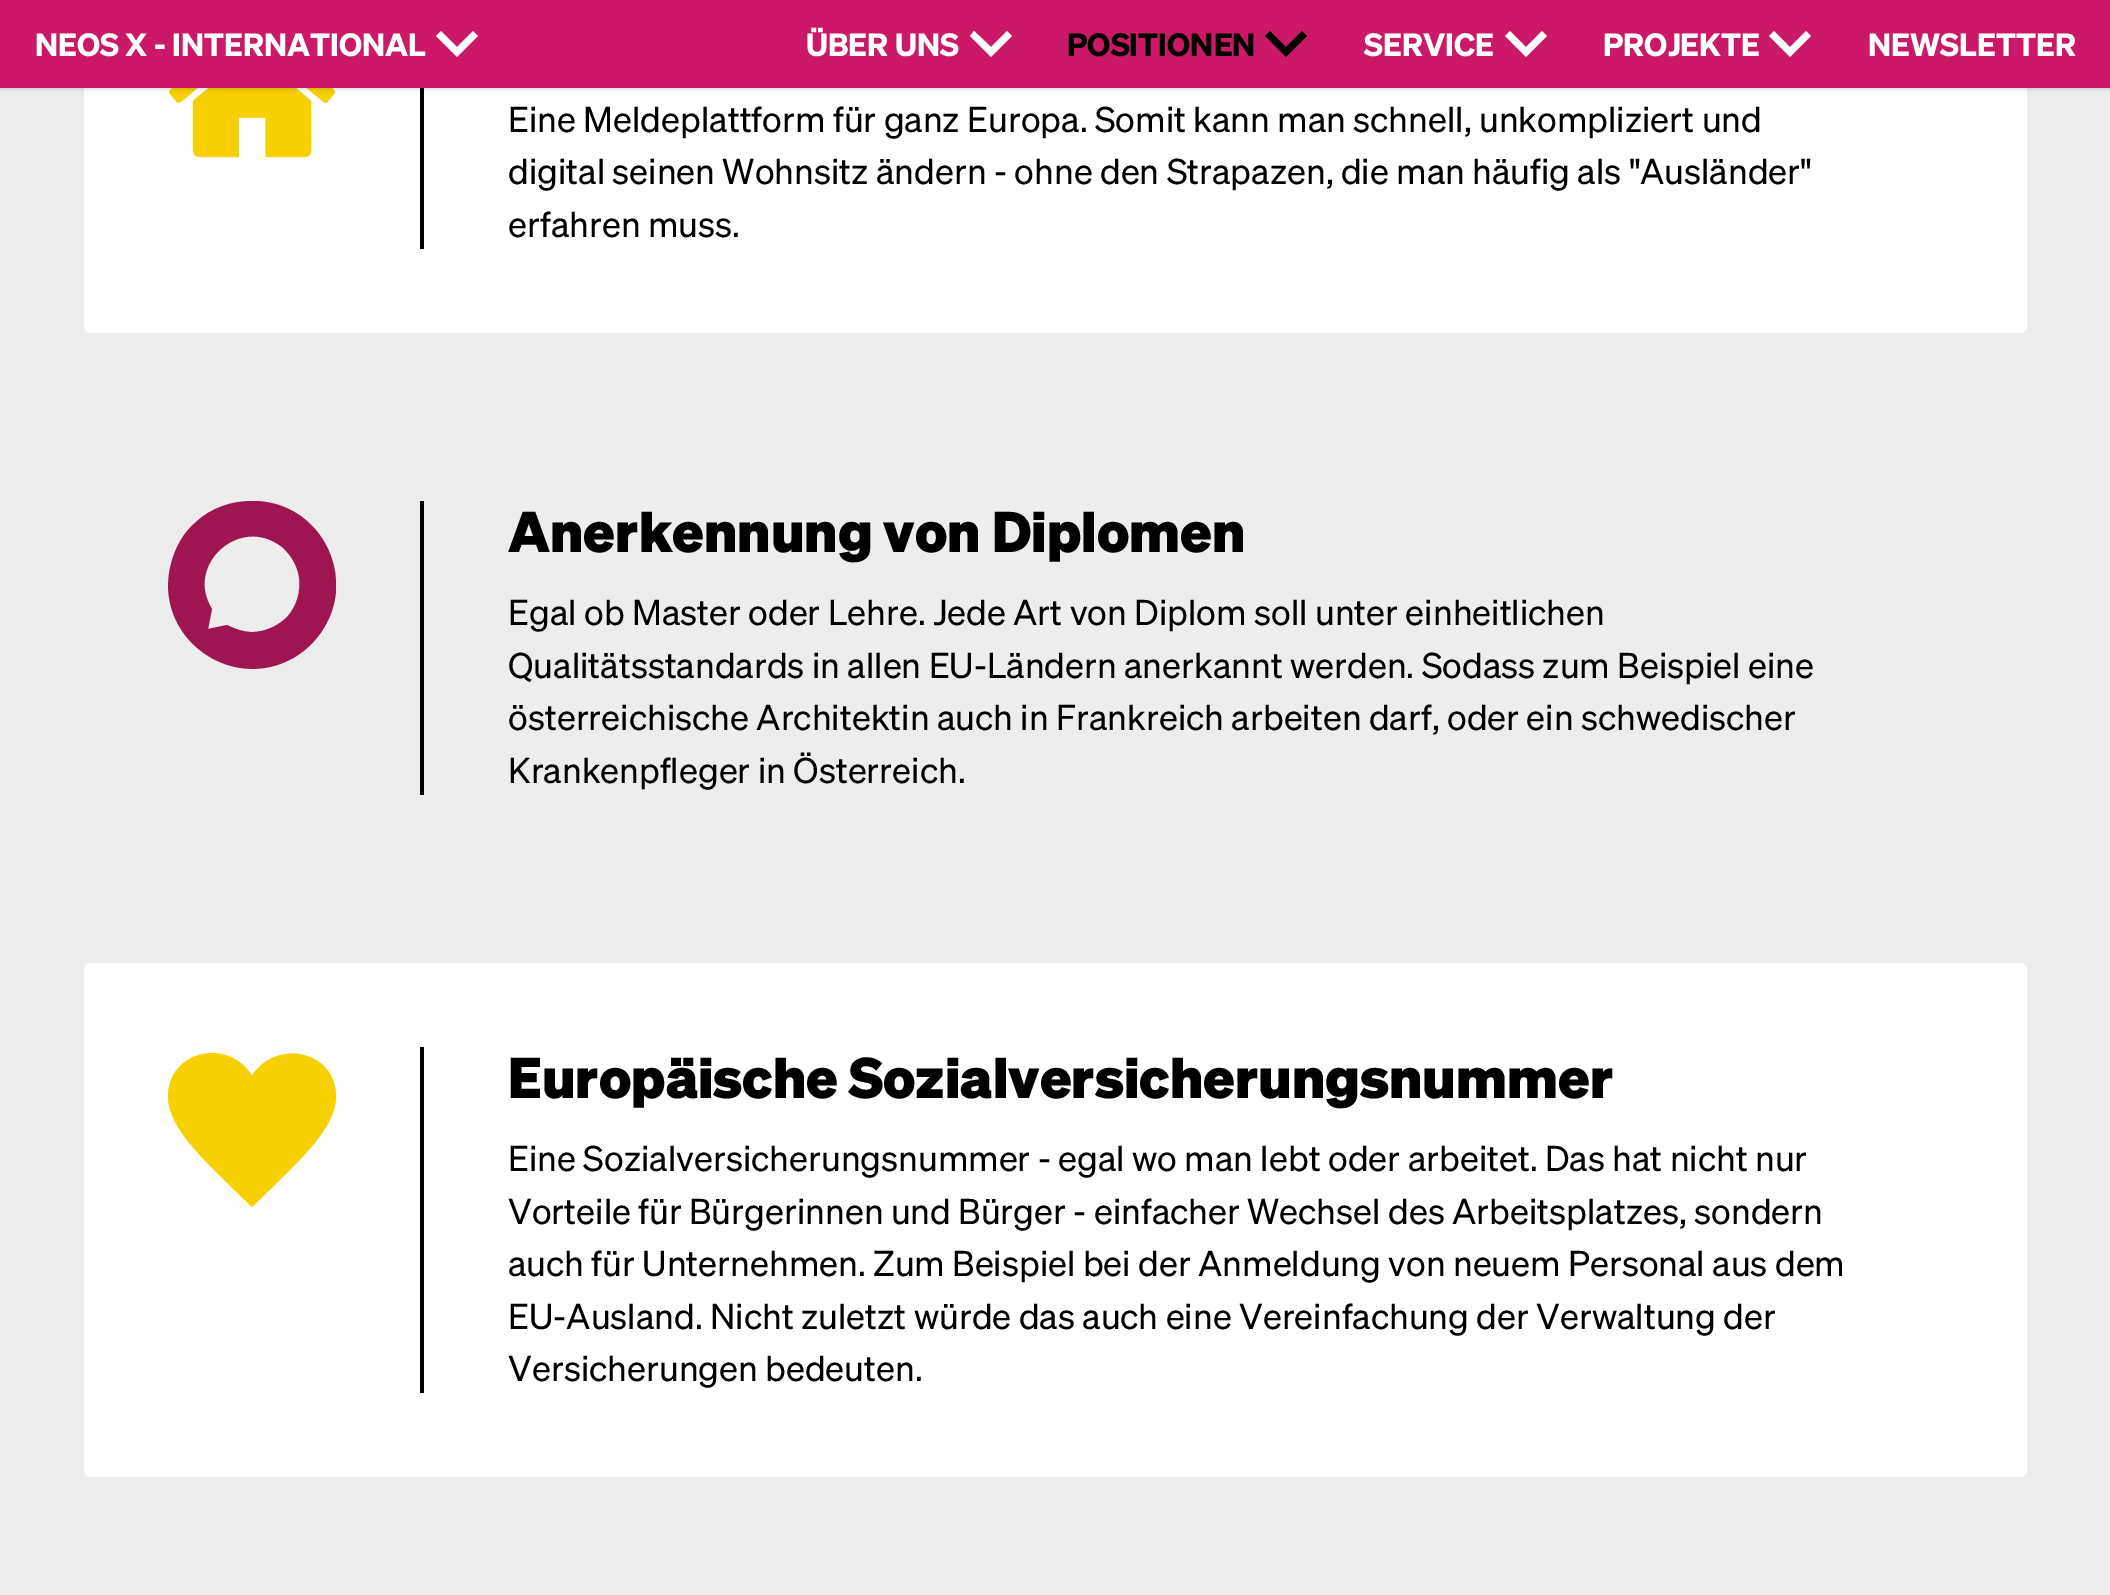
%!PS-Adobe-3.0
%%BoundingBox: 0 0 2110 1595
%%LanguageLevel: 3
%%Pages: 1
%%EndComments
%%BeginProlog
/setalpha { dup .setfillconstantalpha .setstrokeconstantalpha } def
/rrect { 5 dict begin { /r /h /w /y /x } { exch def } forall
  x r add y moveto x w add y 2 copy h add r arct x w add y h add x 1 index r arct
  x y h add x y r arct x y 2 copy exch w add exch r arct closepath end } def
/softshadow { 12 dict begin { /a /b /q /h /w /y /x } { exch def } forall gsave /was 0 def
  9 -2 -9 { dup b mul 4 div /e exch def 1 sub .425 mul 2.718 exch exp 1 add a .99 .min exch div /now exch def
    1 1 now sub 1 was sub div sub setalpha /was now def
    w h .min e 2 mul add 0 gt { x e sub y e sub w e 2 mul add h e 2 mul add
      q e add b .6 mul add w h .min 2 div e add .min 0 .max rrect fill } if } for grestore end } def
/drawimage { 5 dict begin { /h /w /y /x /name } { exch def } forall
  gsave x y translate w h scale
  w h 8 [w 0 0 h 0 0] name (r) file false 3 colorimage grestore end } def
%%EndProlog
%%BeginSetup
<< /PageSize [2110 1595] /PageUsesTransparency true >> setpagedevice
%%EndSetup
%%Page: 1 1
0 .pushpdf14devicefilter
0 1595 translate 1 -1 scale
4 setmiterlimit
0.929 setgray
0 0 2110 1595 rectfill
1 setgray
84 -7 1943 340 7 rrect fill
(images/1.raw) 169 88 167 70 drawimage
0 setgray
420 88 4 161 rectfill
2 -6 2107 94 0 2 0.1 softshadow
0 -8 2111 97 0 2.5 0.1 softshadow
0.796 0.098 0.404 setrgbcolor
0 0 2110 88 rectfill
1 setgray
newpath 436 36 moveto 441 31 lineto 457 47 lineto 473 31 lineto 478 36 lineto 457 57 lineto closepath fill
newpath 970 36 moveto 974 31 lineto 991 47 lineto 1007 31 lineto 1012 36 lineto 991 57 lineto closepath fill
0 setgray
newpath 1265 36 moveto 1270 31 lineto 1286 47 lineto 1302 31 lineto 1307 36 lineto 1286 57 lineto closepath fill
1 setgray
newpath 1505 36 moveto 1510 31 lineto 1526 47 lineto 1542 31 lineto 1547 36 lineto 1526 57 lineto closepath fill
newpath 1769 36 moveto 1774 31 lineto 1790 47 lineto 1806 31 lineto 1811 36 lineto 1790 57 lineto closepath fill
gsave
168 501 168 168 rectclip
0.624 0.082 0.318 setrgbcolor
newpath 252 501 moveto 231 501 211 508 196 522 curveto 183 533 175 548 171 564 curveto 152 636 231 695 295 657 curveto 318 643 334 618 336 591 curveto 339 542 301 500 252 501 curveto closepath 252 632 moveto 243 632 235 629 227 625 curveto 208 629 lineto 212 609 lineto 184 565 240 514 282 547 curveto 291 555 297 565 299 577 curveto 301 591 297 606 287 617 curveto 278 626 265 632 252 632 curveto closepath fill
grestore
0 setgray
420 501 4 294 rectfill
1 setgray
84 963 1943 514 7 rrect fill
0.965 0.816 0 setrgbcolor
newpath 252 1076 moveto 230 1038 168 1049 168 1097 curveto 168 1129 207 1163 252 1207 curveto 297 1163 336 1129 336 1097 curveto 336 1049 274 1039 252 1076 curveto closepath fill
0 setgray
420 1047 4 346 rectfill
/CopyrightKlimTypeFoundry-Bold [31.5 0 0 -31.5 0 0] selectfont
1 setgray
35 56 moveto (NEOS X - INTERNATIONAL) show
806 56 moveto (ÜBER UNS) show
0 setgray
1067 56 moveto (POSITIONEN) show
1 setgray
1364 56 moveto (SERVICE) show
1603 56 moveto (PROJEKTE) show
1868 56 moveto (NEWSLETTER) show
/CopyrightKlimTypeFoundry-Regular [35 0 0 -35 0 0] selectfont
0 setgray
508 132 moveto (Eine Meldeplattform für ganz Europa. Somit kann man schnell, unkompliziert und) show
508 184 moveto (digital seinen Wohnsitz ändern - ohne den Strapazen, die man häufig als "Ausländer") show
508 237 moveto (erfahren muss.) show
/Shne-ExtraBold [56 0 0 -56 0 0] selectfont
508 552 moveto (Anerkennung von Diplomen) show
/CopyrightKlimTypeFoundry-Regular [35 0 0 -35 0 0] selectfont
508 625 moveto (Egal ob Master oder Lehre. Jede Art von Diplom soll unter einheitlichen) show
508 678 moveto (Qualitätsstandards in allen EU-Ländern anerkannt werden. Sodass zum Beispiel eine) show
508 730 moveto (österreichische Architektin auch in Frankreich arbeiten darf, oder ein schwedischer) show
508 783 moveto (Krankenpfleger in Österreich.) show
/Shne-ExtraBold [56 0 0 -56 0 0] selectfont
508 1098 moveto (Europäische Sozialversicherungsnummer) show
/CopyrightKlimTypeFoundry-Regular [35 0 0 -35 0 0] selectfont
508 1171 moveto (Eine Sozialversicherungsnummer - egal wo man lebt oder arbeitet. Das hat nicht nur) show
508 1224 moveto (Vorteile für Bürgerinnen und Bürger - einfacher Wechsel des Arbeitsplatzes, sondern) show
508 1276 moveto (auch für Unternehmen. Zum Beispiel bei der Anmeldung von neuem Personal aus dem) show
508 1329 moveto (EU-Ausland. Nicht zuletzt würde das auch eine Vereinfachung der Verwaltung der) show
508 1381 moveto (Versicherungen bedeuten.) show
.poppdf14devicefilter showpage
%%EOF
